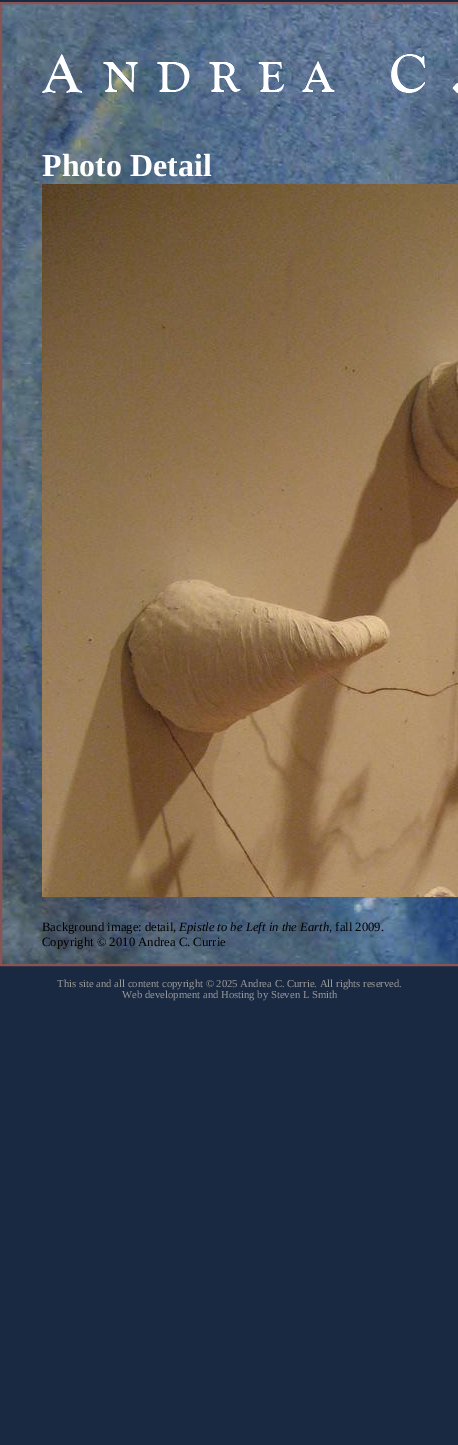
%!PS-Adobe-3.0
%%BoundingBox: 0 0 458 1445
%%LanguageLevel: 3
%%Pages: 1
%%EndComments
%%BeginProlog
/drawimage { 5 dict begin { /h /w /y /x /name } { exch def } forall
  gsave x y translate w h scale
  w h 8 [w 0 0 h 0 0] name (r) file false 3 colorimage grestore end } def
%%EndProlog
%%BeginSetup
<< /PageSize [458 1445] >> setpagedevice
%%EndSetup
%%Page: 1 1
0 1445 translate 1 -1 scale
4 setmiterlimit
0.102 0.161 0.259 setrgbcolor
0 0 458 1445 rectfill
(images/1.raw) 2 4 456 960 drawimage
0.533 0.333 0.333 setrgbcolor
2 setlinewidth
1 3 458 962 rectstroke
(images/2.raw) 42 54 416 39 drawimage
(images/3.raw) 42 184 416 713 drawimage
/LiberationSerif-Bold [32 0 0 -32 0 0] selectfont
1 setgray
42 176 moveto (Photo Detail) show
/LiberationSerif-Regular [12.7 0 0 -12.7 0 0] selectfont
0 setgray
42 931 moveto (Background image: detail,) show
/LiberationSerif-Italic [12.7 0 0 -12.7 0 0] selectfont
179 931 moveto (Epistle to be Left in the Earth) show
/LiberationSerif-Regular [12.7 0 0 -12.7 0 0] selectfont
329 931 moveto (, fall 2009.) show
42 946 moveto (Copyright © 2010 Andrea C. Currie) show
/LiberationSerif-Regular [10.7 0 0 -10.7 0 0] selectfont
0.6 setgray
57 987 moveto (This site and all content copyright © 2025 Andrea C. Currie. All rights reserved.) show
122 998 moveto (Web development and Hosting by Steven L Smith) show
showpage
%%EOF
